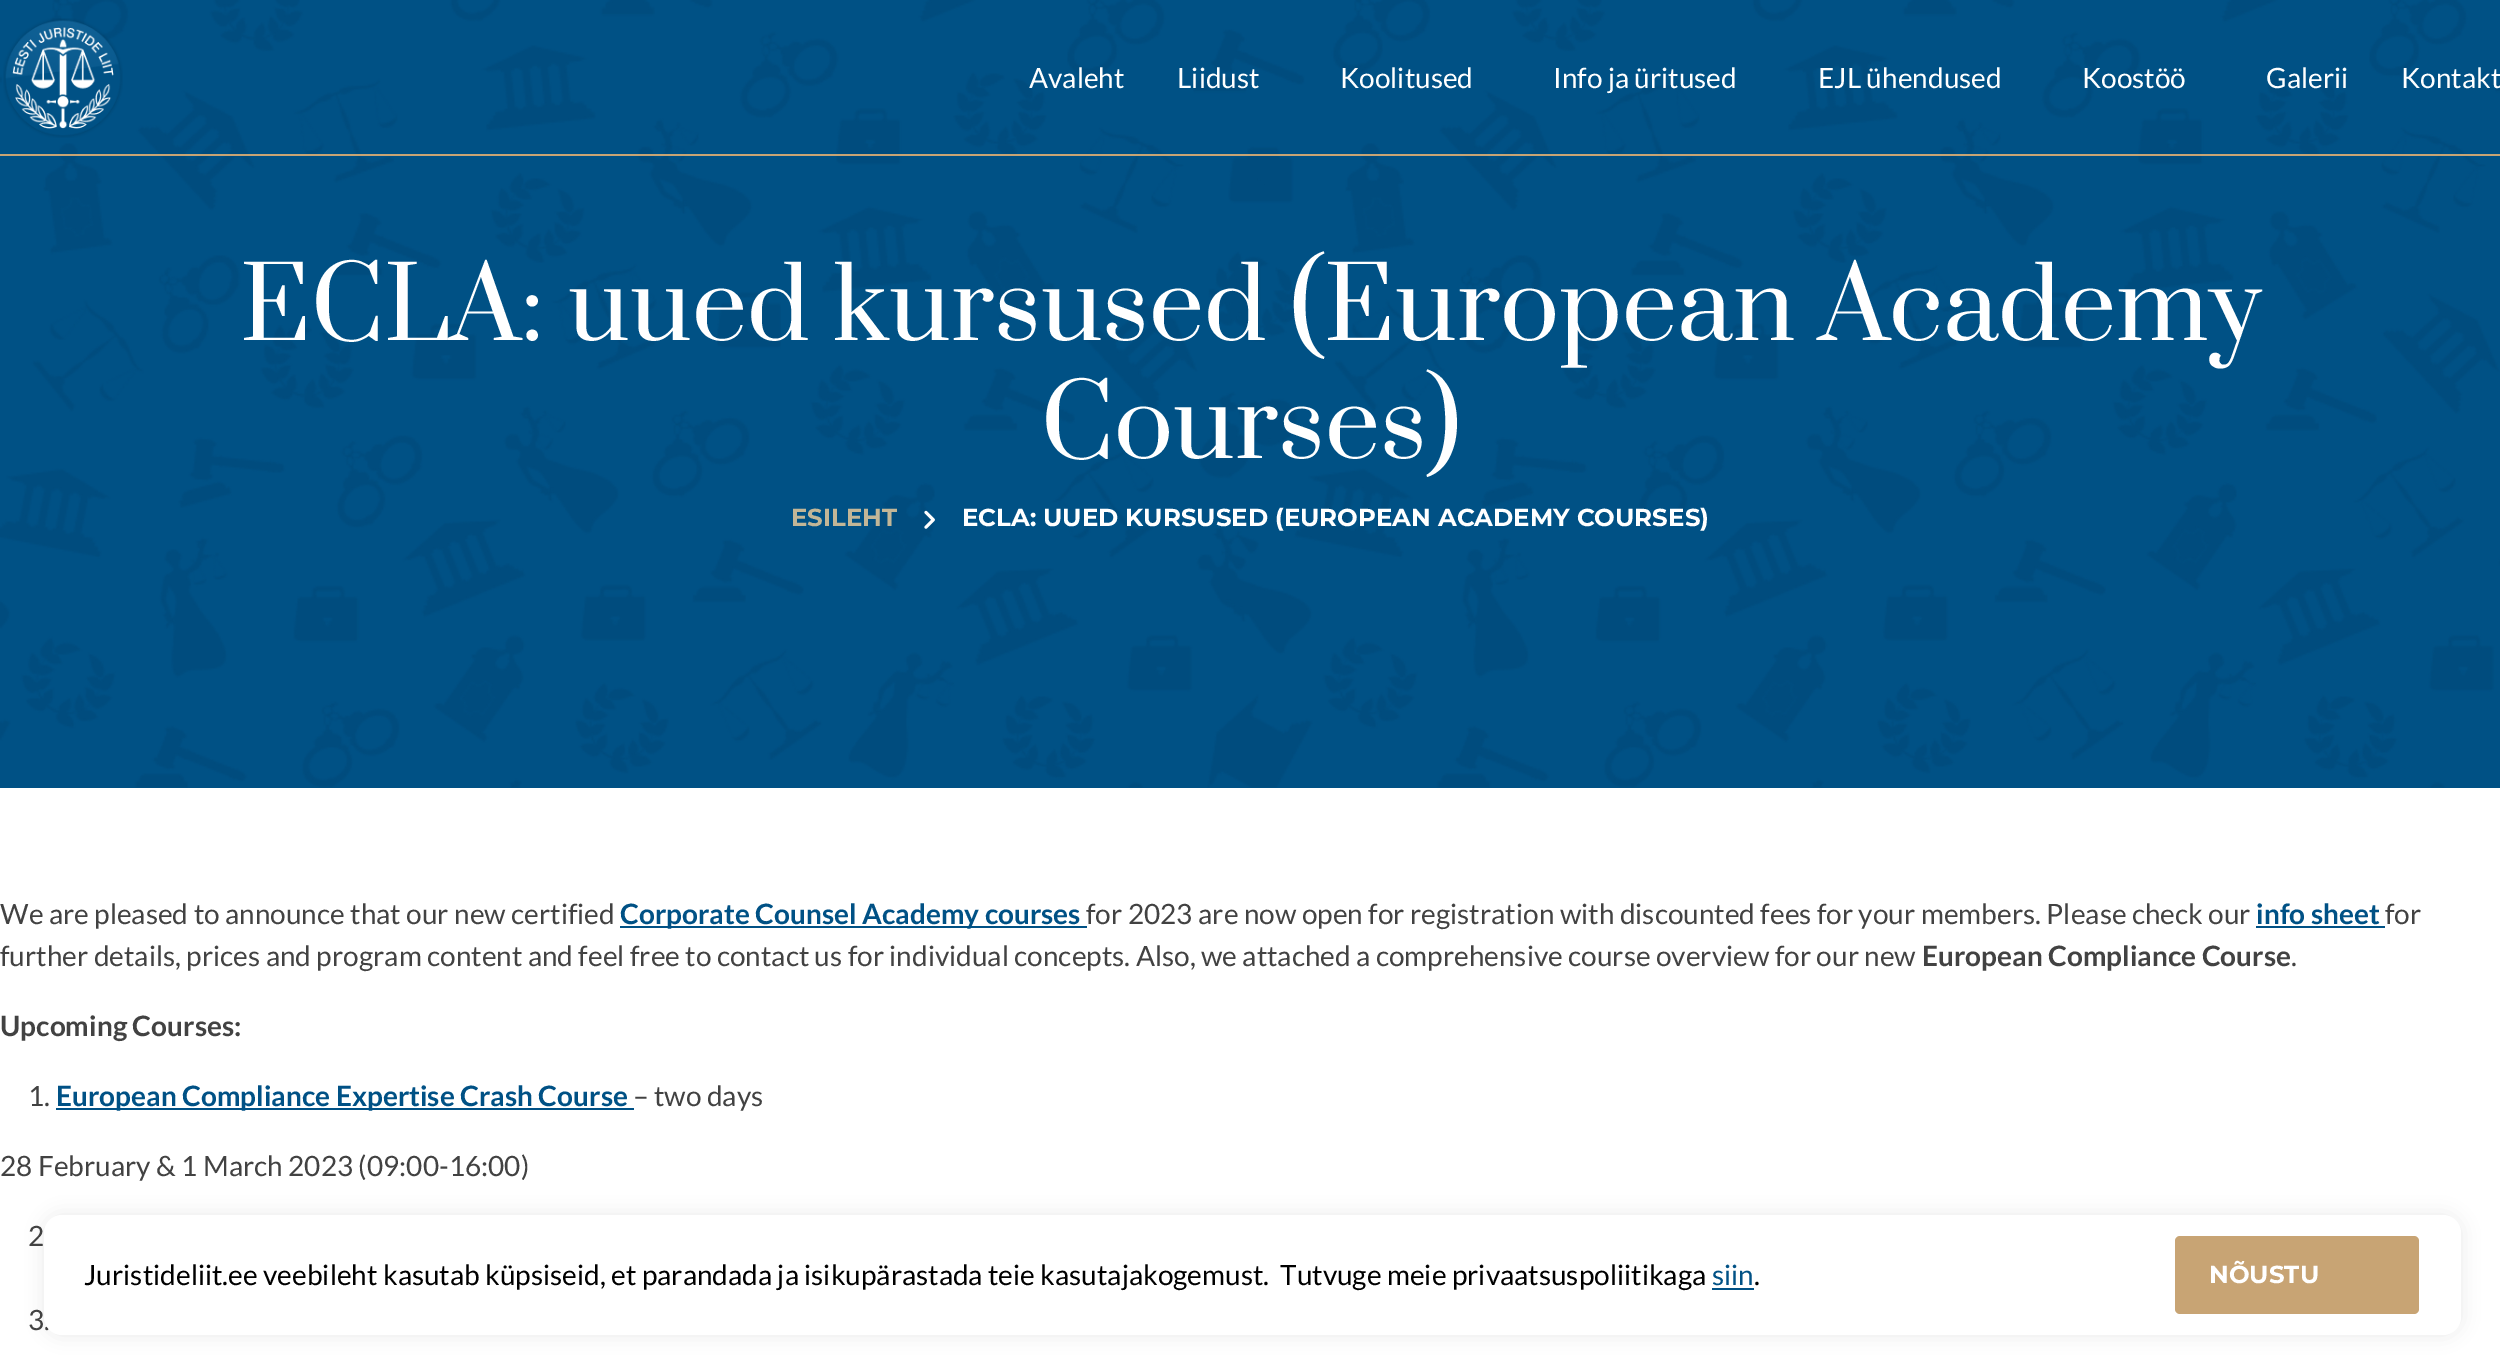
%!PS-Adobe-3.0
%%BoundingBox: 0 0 2500 1355
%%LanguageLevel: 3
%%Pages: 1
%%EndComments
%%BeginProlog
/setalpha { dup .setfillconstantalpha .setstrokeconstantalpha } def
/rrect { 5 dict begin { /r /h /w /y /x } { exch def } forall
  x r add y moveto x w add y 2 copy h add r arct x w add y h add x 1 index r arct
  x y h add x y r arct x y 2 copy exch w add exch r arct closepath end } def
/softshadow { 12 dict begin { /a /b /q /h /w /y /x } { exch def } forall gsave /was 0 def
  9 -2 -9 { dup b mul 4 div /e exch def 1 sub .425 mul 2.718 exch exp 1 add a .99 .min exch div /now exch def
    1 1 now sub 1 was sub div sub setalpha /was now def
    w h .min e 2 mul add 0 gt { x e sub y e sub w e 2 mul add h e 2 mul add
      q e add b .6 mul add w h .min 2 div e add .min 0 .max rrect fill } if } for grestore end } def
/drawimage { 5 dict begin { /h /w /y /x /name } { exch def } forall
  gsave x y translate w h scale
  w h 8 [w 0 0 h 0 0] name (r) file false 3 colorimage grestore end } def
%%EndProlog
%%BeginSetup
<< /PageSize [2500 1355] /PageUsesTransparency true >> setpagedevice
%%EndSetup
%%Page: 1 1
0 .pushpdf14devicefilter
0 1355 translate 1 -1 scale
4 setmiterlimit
1 setgray
0 0 2500 1355 rectfill
0 0.318 0.522 setrgbcolor
0 0 2500 788 rectfill
(images/2.raw) 0 0 2500 788 drawimage
0.784 0.643 0.455 setrgbcolor
0 154 2500 2 rectfill
(images/1.raw) 3 18 120 120 drawimage
(images/3.raw) 924 510 11 19 drawimage
0 0.318 0.522 setrgbcolor
620 926 467 2 rectfill
2256 926 129 2 rectfill
56 1108 578 2 rectfill
0 setgray
44 1215 2417 120 18 9 0.08 softshadow
/Lato-Regular [28 0 0 -28 0 0] selectfont
1 setgray
1029 88 moveto (Avaleht) show
1177 88 moveto (Liidust) show
1340 88 moveto (Koolitused) show
1553 88 moveto (Info ja üritused) show
1818 88 moveto (EJL ühendused) show
2082 88 moveto (Koostöö) show
2266 88 moveto (Galerii) show
2401 88 moveto (Kontakt) show
/Prata-Regular [98 0 0 -98 0 0] selectfont
240 340 moveto (ECLA: uued kursused \(European Academy) show
1041 458 moveto (Courses\)) show
/Montserrat-Bold [24.5 0 0 -24.5 0 0] selectfont
0.761 0.714 0.592 setrgbcolor
791 526 moveto (ESILEHT) show
1 setgray
962 526 moveto (ECLA: UUED KURSUSED \(EUROPEAN ACADEMY COURSES\)) show
/Lato-Regular [28 0 0 -28 0 0] selectfont
0.259 setgray
0 924 moveto (We are pleased to announce that our new certified) show
/Lato-Bold [28 0 0 -28 0 0] selectfont
0 0.318 0.522 setrgbcolor
620 924 moveto (Corporate Counsel Academy courses) show
/Lato-Regular [28 0 0 -28 0 0] selectfont
0.259 setgray
1086 924 moveto (for 2023 are now open for registration with discounted fees for your members. Please check our) show
/Lato-Bold [28 0 0 -28 0 0] selectfont
0 0.318 0.522 setrgbcolor
2256 924 moveto (info sheet) show
/Lato-Regular [28 0 0 -28 0 0] selectfont
0.259 setgray
2385 924 moveto (for) show
0 966 moveto (further details, prices and program content and feel free to contact us for individual concepts. Also, we attached a comprehensive course overview for our new) show
/Lato-Bold [28 0 0 -28 0 0] selectfont
1922 966 moveto (European Compliance Course) show
/Lato-Regular [28 0 0 -28 0 0] selectfont
2291 966 moveto (.) show
/Lato-Bold [28 0 0 -28 0 0] selectfont
0 1036 moveto (Upcoming Courses:) show
/Lato-Regular [28 0 0 -28 0 0] selectfont
28 1106 moveto (1.) show
/Lato-Bold [28 0 0 -28 0 0] selectfont
0 0.318 0.522 setrgbcolor
56 1106 moveto (European Compliance Expertise Crash Course) show
/Lato-Regular [28 0 0 -28 0 0] selectfont
0.259 setgray
633 1106 moveto (– two days) show
0 1176 moveto (28 February & 1 March 2023 \(09:00-16:00\)) show
28 1246 moveto (2) show
28 1330 moveto (3.) show
1 setgray
44 1215 2417 120 18 rrect fill
0 setgray
84 1285 moveto (Juristideliit.ee veebileht kasutab küpsiseid, et parandada ja isikupärastada teie kasutajakogemust.  Tutvuge meie privaatsuspoliitikaga) show
0 0.318 0.522 setrgbcolor
1712 1285 moveto (siin) show
1712 1288 42 2 rectfill
0 setgray
1754 1285 moveto (.) show
0.784 0.643 0.455 setrgbcolor
2175 1236 244 78 5 rrect fill
/Montserrat-Bold [24.5 0 0 -24.5 0 0] selectfont
1 setgray
2209 1283 moveto (NÕUSTU) show
.poppdf14devicefilter showpage
%%EOF
